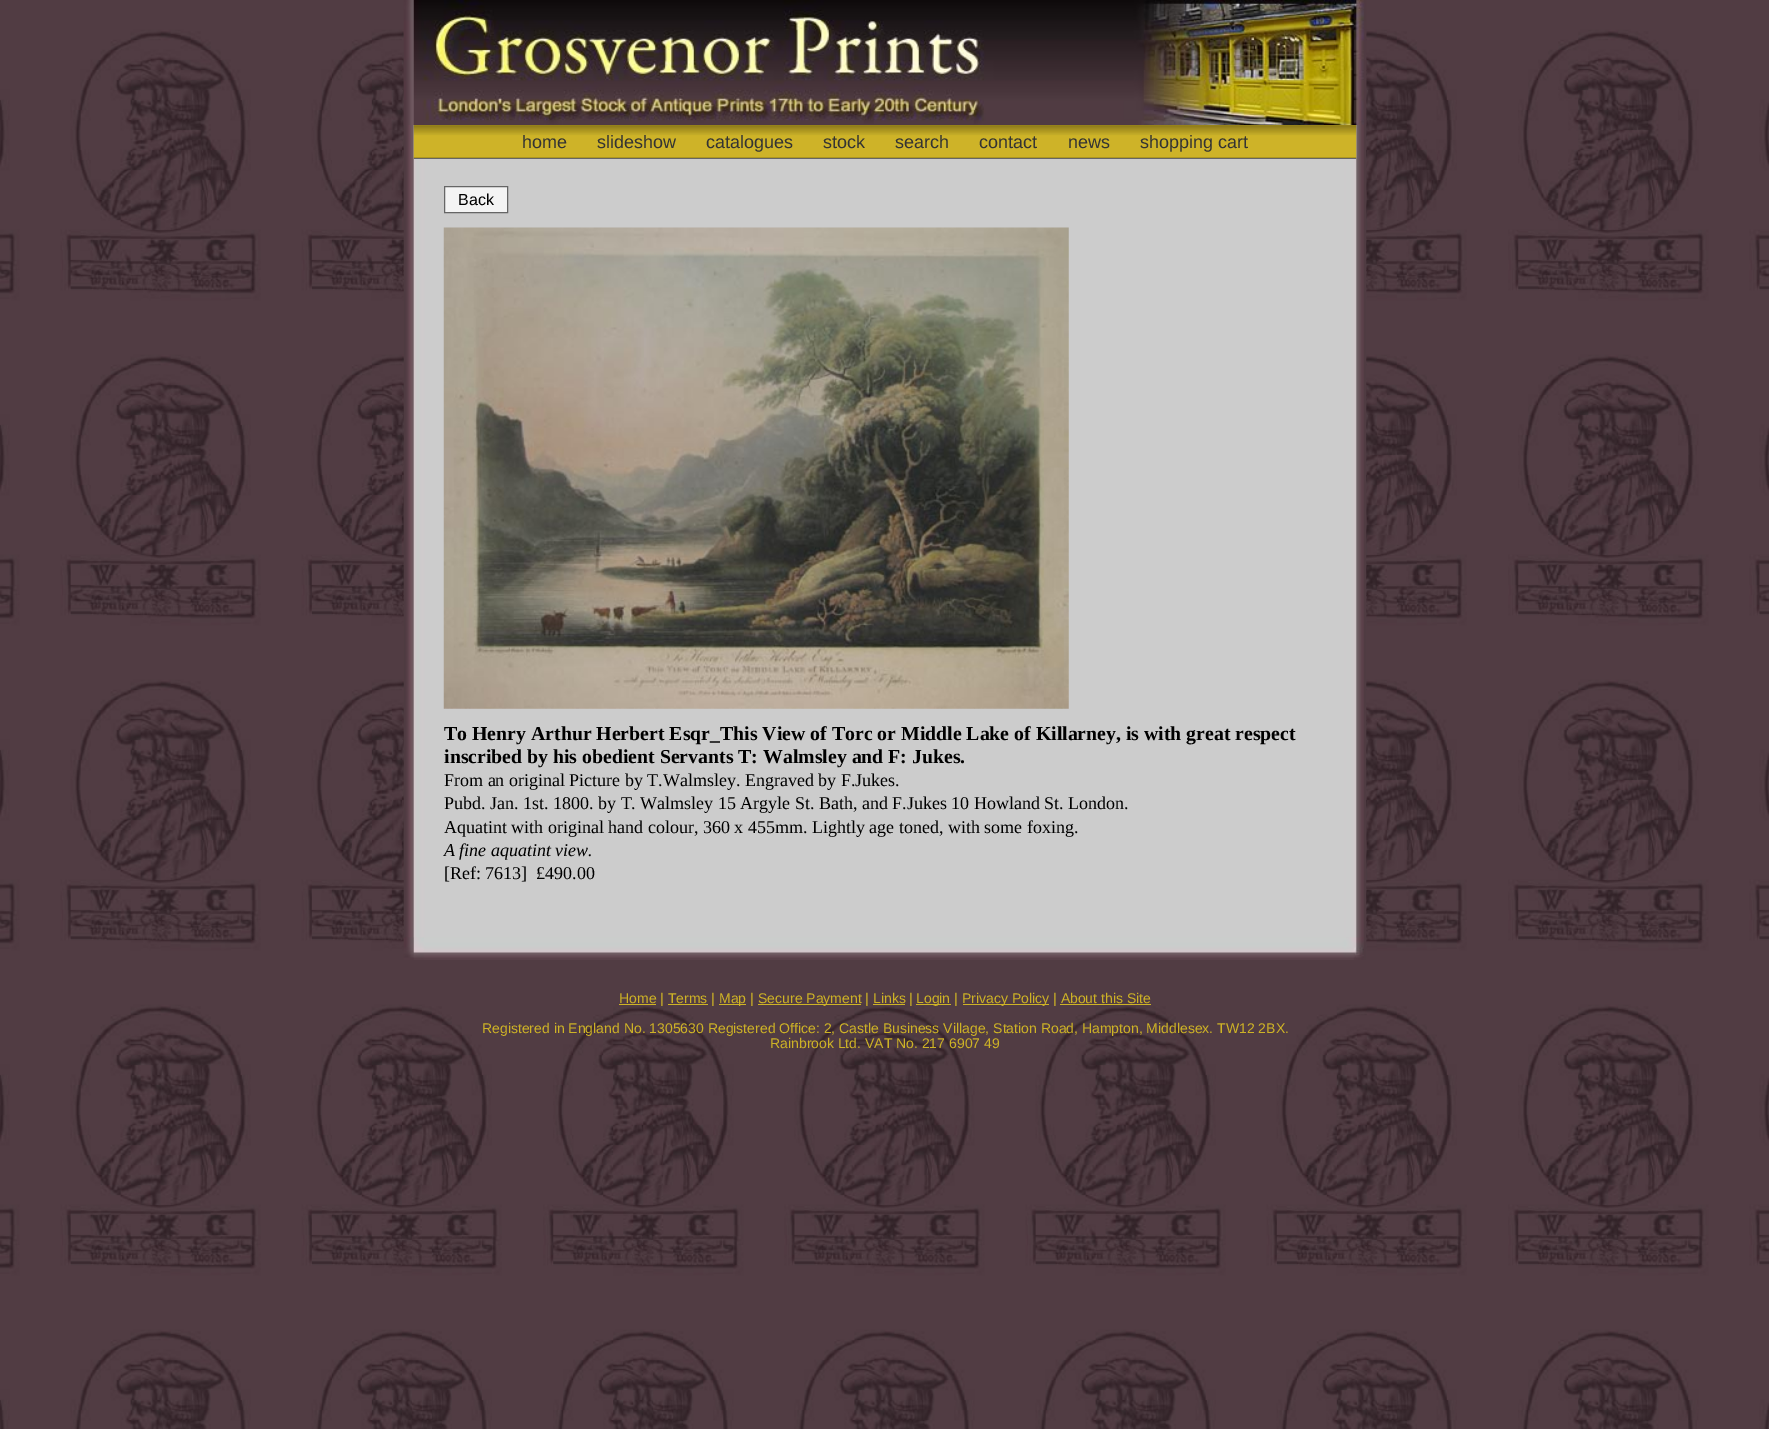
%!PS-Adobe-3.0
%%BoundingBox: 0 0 1769 1429
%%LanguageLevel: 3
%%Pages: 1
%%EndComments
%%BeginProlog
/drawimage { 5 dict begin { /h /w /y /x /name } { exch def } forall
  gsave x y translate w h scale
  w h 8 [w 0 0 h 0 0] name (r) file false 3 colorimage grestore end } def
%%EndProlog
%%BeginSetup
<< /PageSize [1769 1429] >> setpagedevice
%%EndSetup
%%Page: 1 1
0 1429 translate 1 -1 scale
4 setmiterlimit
1 setgray
0 0 1769 1429 rectfill
(images/1.raw) 0 0 1769 1429 drawimage
(images/2.raw) 403 0 964 960 drawimage
(images/3.raw) 403 0 964 125 drawimage
(images/4.raw) 413 125 944 34 drawimage
0.4 setgray
414 158 942 1 rectfill
0.957 setgray
newpath 444.5 186.5 moveto 507.5 186.5 lineto 507.5 212.5 lineto 444.5 212.5 lineto closepath gsave fill grestore
0.4 setgray
stroke
(images/5.raw) 443 227 626 482 drawimage
(images/6.raw) 403 937 961 23 drawimage
0.808 0.702 0.149 setrgbcolor
619 1004 37 1 rectfill
719 1004 27 1 rectfill
758 1004 103 1 rectfill
916 1004 35 1 rectfill
963 1004 86 1 rectfill
668 1004 40 1 rectfill
873 1004 32 1 rectfill
1060 1004 91 1 rectfill
/LiberationSans-Regular [18 0 0 -18 0 0] selectfont
0.2 setgray
522 148 moveto (home) show
597 148 moveto (slideshow) show
706 148 moveto (catalogues) show
823 148 moveto (stock) show
895 148 moveto (search) show
979 148 moveto (contact) show
1068 148 moveto (news) show
1140 148 moveto (shopping cart) show
/LiberationSans-Regular [16 0 0 -16 0 0] selectfont
0 setgray
458 205 moveto (Back) show
/LiberationSerif-Bold [19.8 0 0 -19.8 0 0] selectfont
444 740 moveto (To Henry Arthur Herbert Esqr_This View of Torc or Middle Lake of Killarney, is with great respect) show
444 763 moveto (inscribed by his obedient Servants T: Walmsley and F: Jukes.) show
/LiberationSerif-Regular [18 0 0 -18 0 0] selectfont
444 786 moveto (From an original Picture by T.Walmsley. Engraved by F.Jukes.) show
444 809 moveto (Pubd. Jan. 1st. 1800. by T. Walmsley 15 Argyle St. Bath, and F.Jukes 10 Howland St. London.) show
444 833 moveto (Aquatint with original hand colour, 360 x 455mm. Lightly age toned, with some foxing.) show
/LiberationSerif-Italic [18 0 0 -18 0 0] selectfont
444 856 moveto (A fine aquatint view.) show
/LiberationSerif-Regular [18 0 0 -18 0 0] selectfont
444 879 moveto ([Ref: 7613]  £490.00) show
/LiberationSans-Regular [14 0 0 -14 0 0] selectfont
0.808 0.702 0.149 setrgbcolor
619 1003 moveto (Home | Terms |) show
719 1003 moveto (Map |) show
758 1003 moveto (Secure Payment | Links |) show
916 1003 moveto (Login |) show
962 1003 moveto (Privacy Policy | About this Site) show
482 1033 moveto (Registered in England No. 1305630 Registered Office: 2, Castle Business Village, Station Road, Hampton, Middlesex. TW12 2BX.) show
770 1048 moveto (Rainbrook Ltd. VAT No. 217 6907 49) show
showpage
%%EOF
